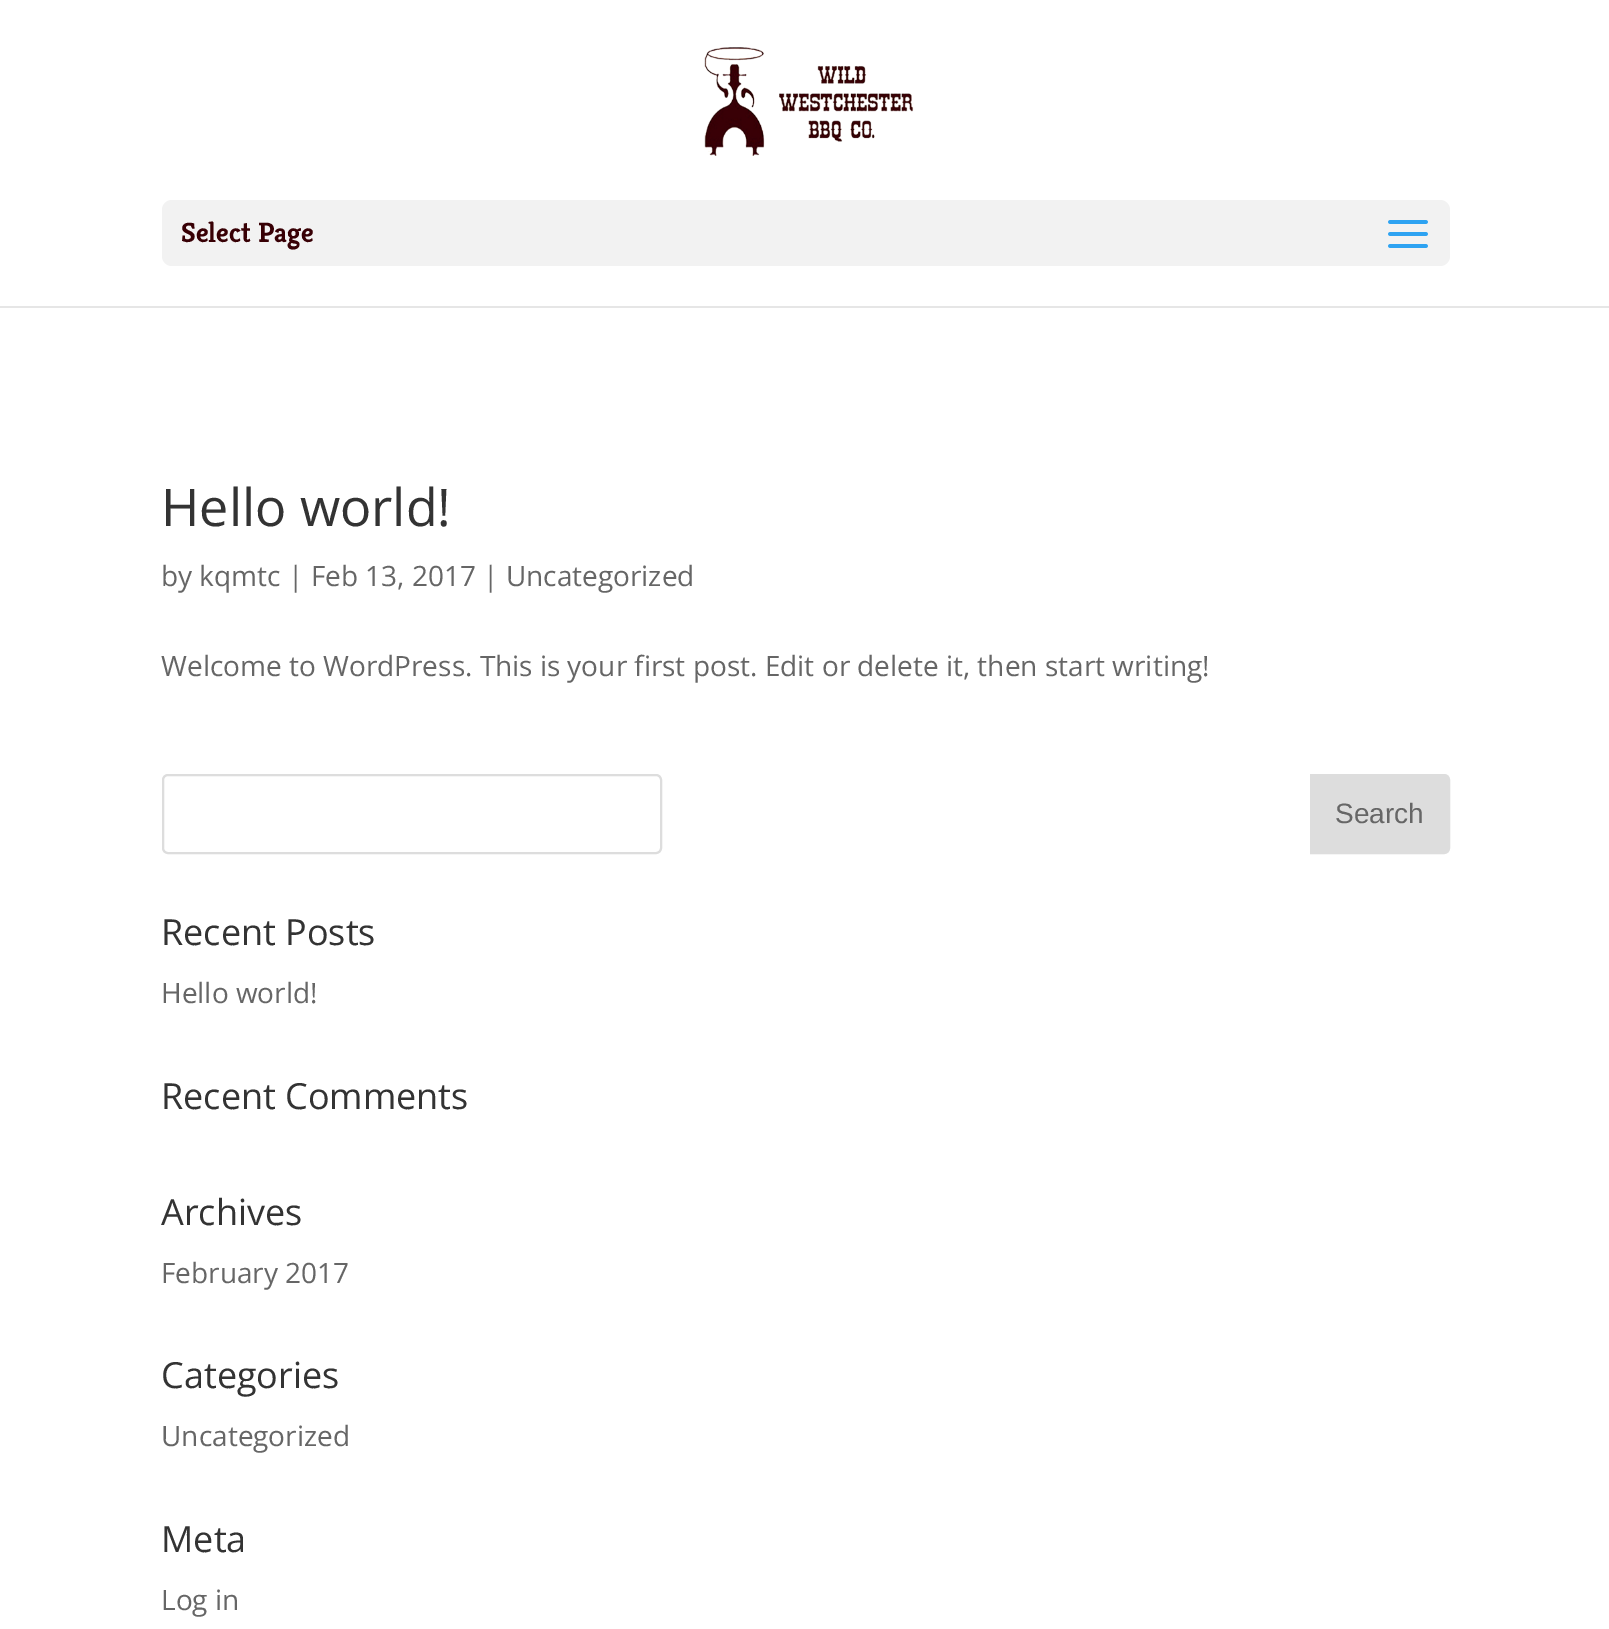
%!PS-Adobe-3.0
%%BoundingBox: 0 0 1609 1629
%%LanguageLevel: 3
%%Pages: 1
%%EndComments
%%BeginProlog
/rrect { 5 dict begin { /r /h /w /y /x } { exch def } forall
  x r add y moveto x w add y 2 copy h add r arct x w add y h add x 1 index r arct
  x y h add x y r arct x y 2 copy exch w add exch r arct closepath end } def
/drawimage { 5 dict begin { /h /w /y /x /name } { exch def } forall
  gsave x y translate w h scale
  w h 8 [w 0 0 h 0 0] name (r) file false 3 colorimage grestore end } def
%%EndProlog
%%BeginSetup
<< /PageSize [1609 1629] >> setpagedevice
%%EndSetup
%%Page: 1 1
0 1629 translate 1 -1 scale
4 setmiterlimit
1 setgray
0 0 1609 1629 rectfill
0.902 setgray
0 306 1609 2 rectfill
(images/1.raw) 704 47 210 109 drawimage
0.949 setgray
162 200 1288 66 10 rrect fill
(images/2.raw) 1388 220 40 28 drawimage
0.867 setgray
2 setlinewidth
163 775 498 78 5 rrect stroke
newpath 1311 775 moveto 1444 775 lineto 1447 775 1449 777 1449 780 curveto 1449 848 lineto 1449 851 1447 853 1444 853 curveto 1311 853 lineto closepath gsave fill grestore
stroke
/Kreon-Bold [28 0 0 -28 0 0] selectfont
0.22 0 0.02 setrgbcolor
181 242 moveto (Select Page) show
/OpenSans-Regular [52 0 0 -52 0 0] selectfont
0.2 setgray
161 526 moveto (Hello world!) show
/OpenSans-Regular [28 0 0 -28 0 0] selectfont
0.4 setgray
161 586 moveto (by kqmtc | Feb 13, 2017 | Uncategorized) show
161 676 moveto (Welcome to WordPress. This is your first post. Edit or delete it, then start writing!) show
/LiberationSans-Regular [28 0 0 -28 0 0] selectfont
1335 823 moveto (Search) show
/OpenSans-Regular [36 0 0 -36 0 0] selectfont
0.2 setgray
161 945 moveto (Recent Posts) show
/OpenSans-Regular [28 0 0 -28 0 0] selectfont
0.4 setgray
161 1003 moveto (Hello world!) show
/OpenSans-Regular [36 0 0 -36 0 0] selectfont
0.2 setgray
161 1109 moveto (Recent Comments) show
161 1225 moveto (Archives) show
/OpenSans-Regular [28 0 0 -28 0 0] selectfont
0.4 setgray
161 1283 moveto (February 2017) show
/OpenSans-Regular [36 0 0 -36 0 0] selectfont
0.2 setgray
161 1388 moveto (Categories) show
/OpenSans-Regular [28 0 0 -28 0 0] selectfont
0.4 setgray
161 1446 moveto (Uncategorized) show
/OpenSans-Regular [36 0 0 -36 0 0] selectfont
0.2 setgray
161 1552 moveto (Meta) show
/OpenSans-Regular [28 0 0 -28 0 0] selectfont
0.4 setgray
161 1610 moveto (Log in) show
showpage
%%EOF
